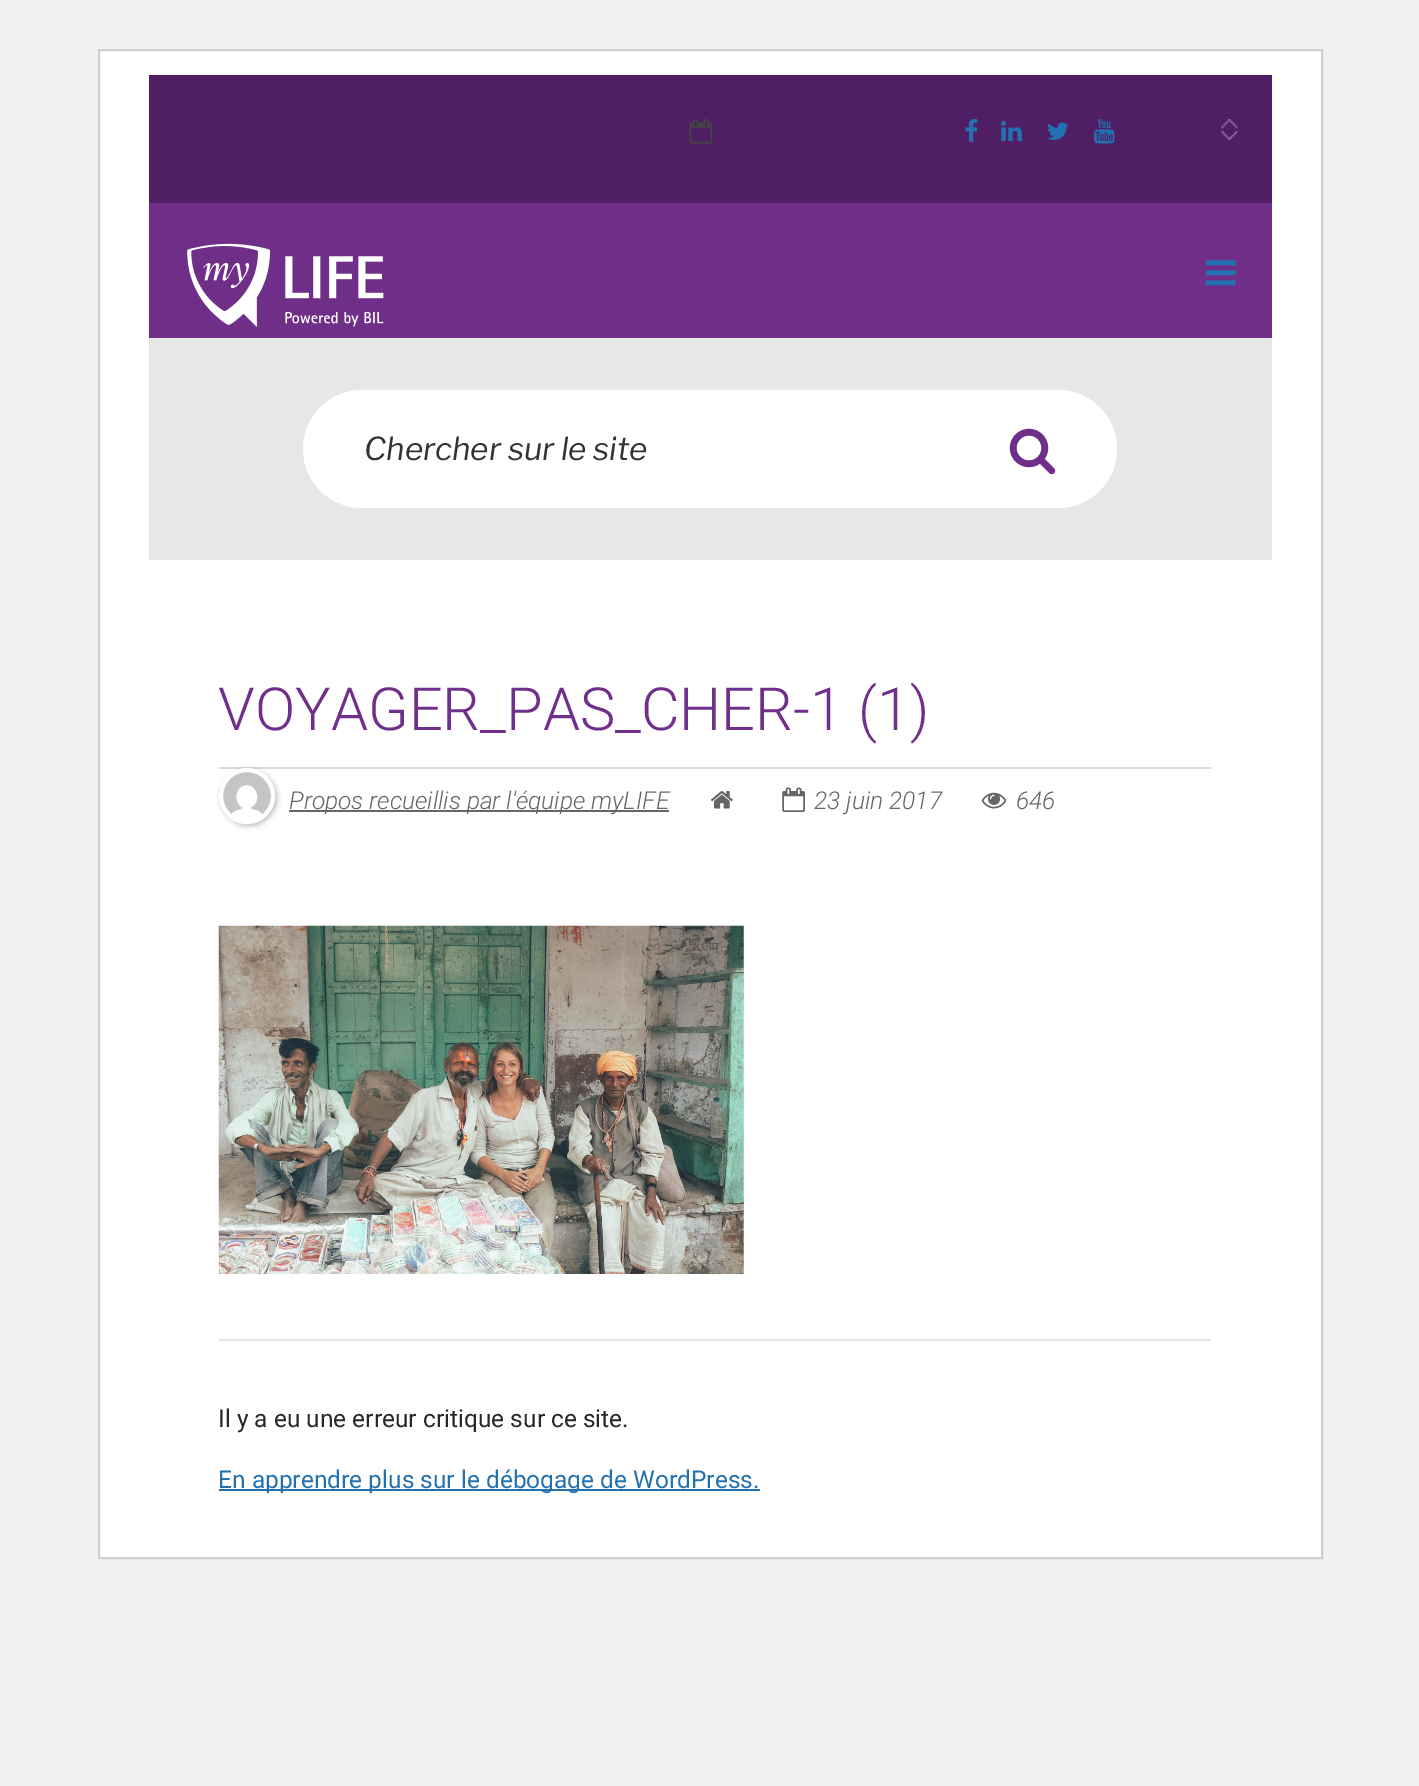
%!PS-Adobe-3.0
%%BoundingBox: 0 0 1419 1786
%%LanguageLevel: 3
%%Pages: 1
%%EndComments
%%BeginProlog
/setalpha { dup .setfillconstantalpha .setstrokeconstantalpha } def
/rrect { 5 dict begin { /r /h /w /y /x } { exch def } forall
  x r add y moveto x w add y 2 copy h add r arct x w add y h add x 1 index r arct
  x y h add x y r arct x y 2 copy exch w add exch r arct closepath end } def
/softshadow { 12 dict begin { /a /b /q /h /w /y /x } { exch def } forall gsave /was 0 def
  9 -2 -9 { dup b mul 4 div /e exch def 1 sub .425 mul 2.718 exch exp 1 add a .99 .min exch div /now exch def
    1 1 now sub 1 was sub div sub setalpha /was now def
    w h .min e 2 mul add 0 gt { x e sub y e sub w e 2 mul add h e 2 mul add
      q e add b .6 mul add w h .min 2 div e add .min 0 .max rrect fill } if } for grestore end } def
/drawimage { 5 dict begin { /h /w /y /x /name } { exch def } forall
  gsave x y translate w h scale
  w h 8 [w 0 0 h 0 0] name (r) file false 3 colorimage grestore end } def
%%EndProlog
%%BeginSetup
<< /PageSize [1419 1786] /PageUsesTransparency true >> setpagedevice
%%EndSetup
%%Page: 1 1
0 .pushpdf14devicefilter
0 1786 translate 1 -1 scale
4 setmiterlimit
0.945 setgray
0 0 1419 1786 rectfill
1 setgray
newpath 99 50 moveto 1322 50 lineto 1322 1558 lineto 99 1558 lineto closepath gsave fill grestore
0.8 0.816 0.831 setrgbcolor
2 setlinewidth
stroke
0.314 0.118 0.392 setrgbcolor
149 75 1123 128 rectfill
(images/1.raw) 689 119 24 25 drawimage
(images/2.raw) 965 119 13 23 drawimage
(images/3.raw) 1001 121 21 21 drawimage
(images/4.raw) 1047 122 22 18 drawimage
(images/5.raw) 1094 119 21 25 drawimage
(images/6.raw) 1221 119 17 21 drawimage
0.435 0.184 0.537 setrgbcolor
149 203 1123 135 rectfill
(images/7.raw) 187 243 197 84 drawimage
(images/8.raw) 1205 260 31 26 drawimage
0.906 setgray
149 338 1123 222 rectfill
1 setgray
303 390 814 118 59 rrect fill
(images/9.raw) 1009 428 47 47 drawimage
0.855 setgray
219 767 992 2 rectfill
0 setgray
221 770 56 56 28 2.5 0.25 softshadow
(images/10.raw) 219 768 56 56 drawimage
1 setgray
4 setlinewidth
newpath 247 796 26 0 360 arc closepath stroke
0.4 setgray
289 810 380 2 rectfill
(images/11.raw) 710 791 23 18 drawimage
(images/12.raw) 782 787 23 25 drawimage
(images/13.raw) 981 792 26 17 drawimage
(images/14.raw) 218 925 526 349 drawimage
0.898 setgray
219 1339 992 2 rectfill
0.133 0.443 0.694 setrgbcolor
219 1489 541 2 rectfill
/LibreFranklin-Italic [31.5 0 0 -31.5 0 0] selectfont
0.2 setgray
364 460 moveto (Chercher sur le site) show
/Roboto-Light [59.5 0 0 -59.5 0 0] selectfont
0.439 0.184 0.541 setrgbcolor
218 730 moveto (VOYAGER_PAS_CHER-1 \(1\)) show
/Roboto-LightItalic [24.5 0 0 -24.5 0 0] selectfont
0.4 setgray
289 809 moveto (Propos recueillis par l'équipe myLIFE) show
814 809 moveto (23 juin 2017) show
1016 809 moveto (646) show
/Roboto-Regular [24.5 0 0 -24.5 0 0] selectfont
0.157 setgray
218 1427 moveto (Il y a eu une erreur critique sur ce site.) show
0.133 0.443 0.694 setrgbcolor
218 1488 moveto (En apprendre plus sur le débogage de WordPress.) show
.poppdf14devicefilter showpage
%%EOF
